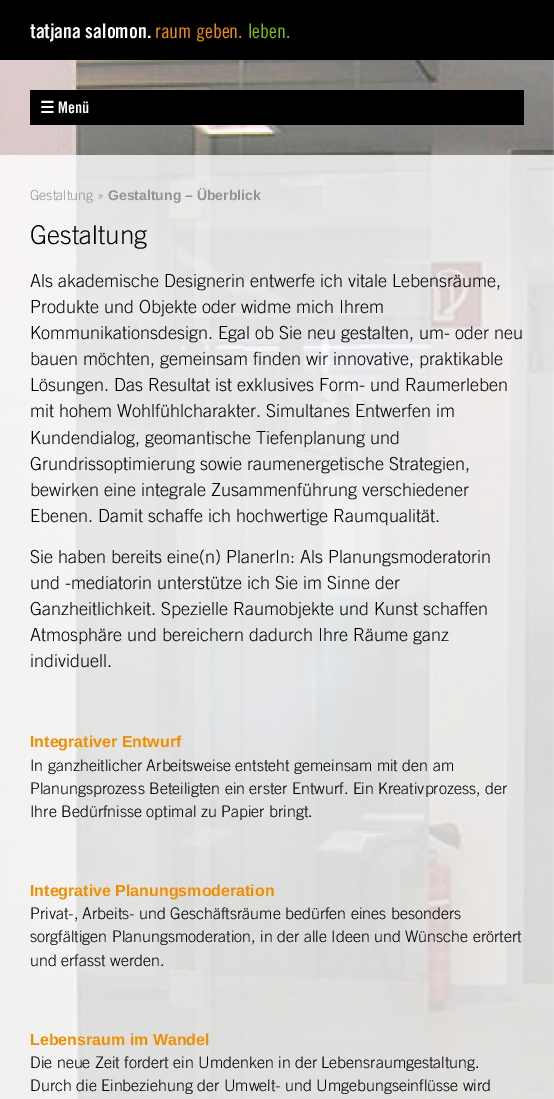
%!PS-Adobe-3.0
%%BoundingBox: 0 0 554 1099
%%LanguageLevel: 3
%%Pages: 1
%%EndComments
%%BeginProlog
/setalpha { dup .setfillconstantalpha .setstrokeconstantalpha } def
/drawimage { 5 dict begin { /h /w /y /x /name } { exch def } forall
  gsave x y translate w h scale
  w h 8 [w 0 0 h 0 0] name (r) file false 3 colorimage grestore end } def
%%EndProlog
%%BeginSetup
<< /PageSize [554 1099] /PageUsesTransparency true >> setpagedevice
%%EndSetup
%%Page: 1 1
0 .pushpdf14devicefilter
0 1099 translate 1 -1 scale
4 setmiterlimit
1 setgray
0 0 554 1099 rectfill
(images/1.raw) 0 60 554 1039 drawimage
0 setgray
0 0 554 60 rectfill
30 90 494 35 rectfill
0.8 setalpha
1 setgray
0 155 554 944 rectfill
/TradeGothic-Bold [20 0 0 -20 0 0] selectfont
1 setalpha
30 38 moveto (tatjana salomon.) show
/TradeGothic-Regular [20 0 0 -20 0 0] selectfont
0.945 0.553 0 setrgbcolor
155 38 moveto (raum geben.) show
0.51 0.737 0 setrgbcolor
248 38 moveto (leben.) show
/DejaVuSans-Bold [16 0 0 -16 0 0] selectfont
1 setgray
40 113 moveto (☰) show
/TradeGothic-Bold [16 0 0 -16 0 0] selectfont
58 113 moveto (Menü) show
/TradeGothic-Light [14 0 0 -14 0 0] selectfont
0.576 setgray
30 200 moveto (Gestaltung ») show
/LiberationSans-Bold [14 0 0 -14 0 0] selectfont
108 200 moveto (Gestaltung – Überblick) show
/TradeGothic-Light [26 0 0 -26 0 0] selectfont
0 setgray
30 244 moveto (Gestaltung) show
/TradeGothic-Light [18 0 0 -18 0 0] selectfont
30 287 moveto (Als akademische Designerin entwerfe ich vitale Lebensräume,) show
30 313 moveto (Produkte und Objekte oder widme mich Ihrem) show
30 339 moveto (Kommunikationsdesign. Egal ob Sie neu gestalten, um- oder neu) show
30 365 moveto (bauen möchten, gemeinsam finden wir innovative, praktikable) show
30 391 moveto (Lösungen. Das Resultat ist exklusives Form- und Raumerleben) show
30 417 moveto (mit hohem Wohlfühlcharakter. Simultanes Entwerfen im) show
30 444 moveto (Kundendialog, geomantische Tiefenplanung und) show
30 470 moveto (Grundrissoptimierung sowie raumenergetische Strategien,) show
30 496 moveto (bewirken eine integrale Zusammenführung verschiedener) show
30 522 moveto (Ebenen. Damit schaffe ich hochwertige Raumqualität.) show
30 563 moveto (Sie haben bereits eine\(n\) PlanerIn: Als Planungsmoderatorin) show
30 589 moveto (und -mediatorin unterstütze ich Sie im Sinne der) show
30 615 moveto (Ganzheitlichkeit. Spezielle Raumobjekte und Kunst schaffen) show
30 641 moveto (Atmosphäre und bereichern dadurch Ihre Räume ganz) show
30 667 moveto (individuell.) show
/LiberationSans-Bold [16 0 0 -16 0 0] selectfont
0.945 0.553 0 setrgbcolor
30 747 moveto (Integrativer Entwurf) show
/TradeGothic-Light [16 0 0 -16 0 0] selectfont
0 setgray
30 771 moveto (In ganzheitlicher Arbeitsweise entsteht gemeinsam mit den am) show
30 794 moveto (Planungsprozess Beteiligten ein erster Entwurf. Ein Kreativprozess, der) show
30 817 moveto (Ihre Bedürfnisse optimal zu Papier bringt.) show
/LiberationSans-Bold [16 0 0 -16 0 0] selectfont
0.945 0.553 0 setrgbcolor
30 896 moveto (Integrative Planungsmoderation) show
/TradeGothic-Light [16 0 0 -16 0 0] selectfont
0 setgray
30 919 moveto (Privat-, Arbeits- und Geschäftsräume bedürfen eines besonders) show
30 942 moveto (sorgfältigen Planungsmoderation, in der alle Ideen und Wünsche erörtert) show
30 966 moveto (und erfasst werden.) show
/LiberationSans-Bold [16 0 0 -16 0 0] selectfont
0.945 0.553 0 setrgbcolor
30 1045 moveto (Lebensraum im Wandel) show
/TradeGothic-Light [16 0 0 -16 0 0] selectfont
0 setgray
30 1068 moveto (Die neue Zeit fordert ein Umdenken in der Lebensraumgestaltung.) show
30 1091 moveto (Durch die Einbeziehung der Umwelt- und Umgebungseinflüsse wird) show
.poppdf14devicefilter showpage
%%EOF
